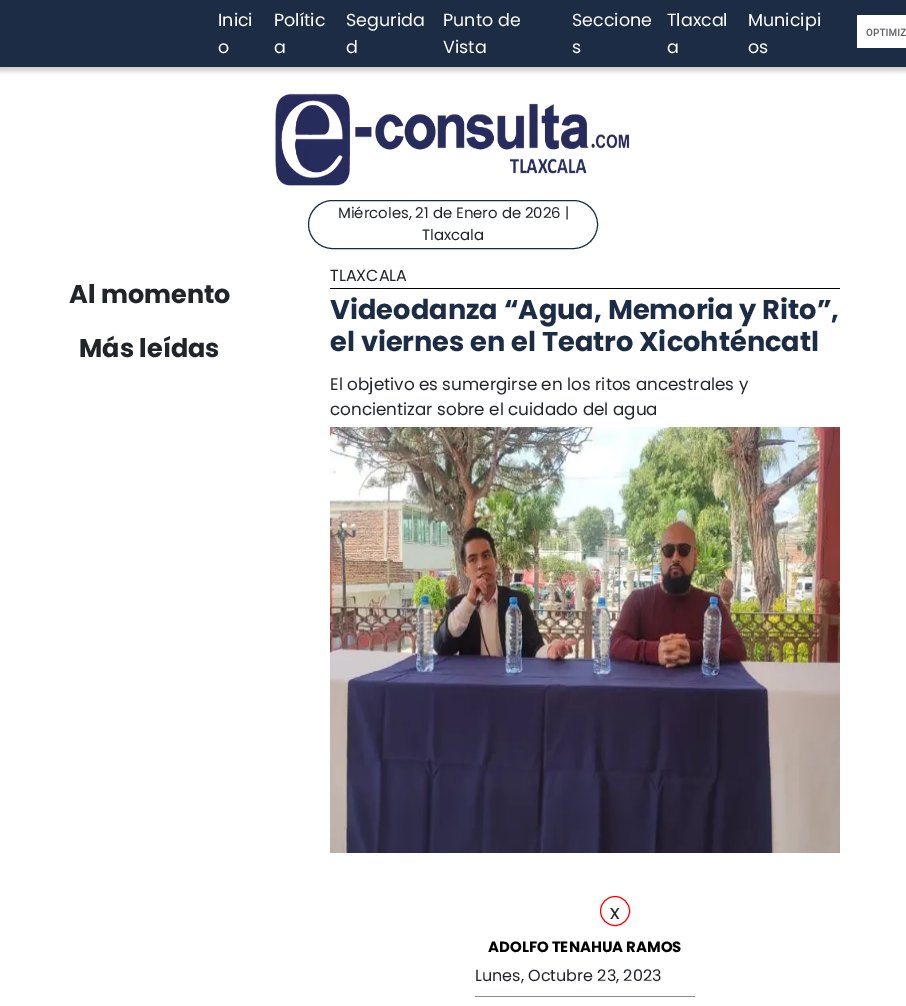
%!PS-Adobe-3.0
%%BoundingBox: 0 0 906 1006
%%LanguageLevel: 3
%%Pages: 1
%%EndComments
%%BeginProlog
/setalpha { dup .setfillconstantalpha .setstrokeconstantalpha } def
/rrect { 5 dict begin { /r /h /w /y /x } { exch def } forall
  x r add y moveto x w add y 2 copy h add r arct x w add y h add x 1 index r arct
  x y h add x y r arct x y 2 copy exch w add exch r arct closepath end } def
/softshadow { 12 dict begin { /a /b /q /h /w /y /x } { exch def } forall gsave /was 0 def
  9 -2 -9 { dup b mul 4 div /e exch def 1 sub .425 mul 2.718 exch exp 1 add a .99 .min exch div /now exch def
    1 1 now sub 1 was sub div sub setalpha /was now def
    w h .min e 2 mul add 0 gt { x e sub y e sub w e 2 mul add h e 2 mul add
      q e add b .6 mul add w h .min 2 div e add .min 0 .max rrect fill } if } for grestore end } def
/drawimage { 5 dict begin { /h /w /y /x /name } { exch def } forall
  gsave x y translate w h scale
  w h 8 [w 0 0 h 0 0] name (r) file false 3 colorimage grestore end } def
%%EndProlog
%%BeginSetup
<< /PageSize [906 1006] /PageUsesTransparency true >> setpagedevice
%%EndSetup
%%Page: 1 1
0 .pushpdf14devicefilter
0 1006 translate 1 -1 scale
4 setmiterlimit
1 setgray
0 0 906 1006 rectfill
0 setgray
-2 0 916 71 0 2.5 0.2 softshadow
0.106 0.173 0.267 setrgbcolor
0 0 906 67 rectfill
1 setgray
857 15 49 33 rectfill
(images/1.raw) 866 28 40 8 drawimage
(images/2.raw) 274 93 356 93 drawimage
0.106 0.173 0.267 setrgbcolor
308.5 200.5 289 48 24 rrect stroke
0 setgray
330 288 510 1 rectfill
(images/3.raw) 330 427 510 426 drawimage
0.549 setgray
475 996 220 1 rectfill
1 0 0 setrgbcolor
newpath 615 911 14.5 0 360 arc closepath stroke
/Poppins-Regular [17.5 0 0 -17.5 0 0] selectfont
1 setgray
218 26 moveto (Inici) show
218 53 moveto (o) show
274 26 moveto (Polític) show
274 53 moveto (a) show
346 26 moveto (Segurida) show
346 53 moveto (d) show
443 26 moveto (Punto de) show
443 53 moveto (Vista) show
572 26 moveto (Seccione) show
572 53 moveto (s) show
667 26 moveto (Tlaxcal) show
667 53 moveto (a) show
748 26 moveto (Municipi) show
748 53 moveto (os) show
/Poppins-Regular [14.9 0 0 -14.9 0 0] selectfont
0.129 0.145 0.161 setrgbcolor
338 218 moveto (Miércoles, 21 de Enero de 2026 |) show
422 240 moveto (Tlaxcala) show
/Poppins-Bold [25.5 0 0 -25.5 0 0] selectfont
69 303 moveto (Al momento) show
79 357 moveto (Más leídas) show
/Poppins-Regular [16 0 0 -16 0 0] selectfont
330 281 moveto (TLAXCALA) show
/Poppins-Bold [27.25 0 0 -27.25 0 0] selectfont
0.106 0.173 0.267 setrgbcolor
330 319 moveto (Videodanza “Agua, Memoria y Rito”,) show
330 351 moveto (el viernes en el Teatro Xicohténcatl) show
/Poppins-Regular [16.8 0 0 -16.8 0 0] selectfont
0.129 0.145 0.161 setrgbcolor
330 390 moveto (El objetivo es sumergirse en los ritos ancestrales y) show
330 415 moveto (concientizar sobre el cuidado del agua) show
/Poppins-Bold [14.9 0 0 -14.9 0 0] selectfont
0 setgray
488 952 moveto (ADOLFO TENAHUA RAMOS) show
/Poppins-Regular [16 0 0 -16 0 0] selectfont
0.129 0.145 0.161 setrgbcolor
475 981 moveto (Lunes, Octubre 23, 2023) show
/Poppins-Regular [20 0 0 -20 0 0] selectfont
610 919 moveto (x) show
.poppdf14devicefilter showpage
%%EOF
